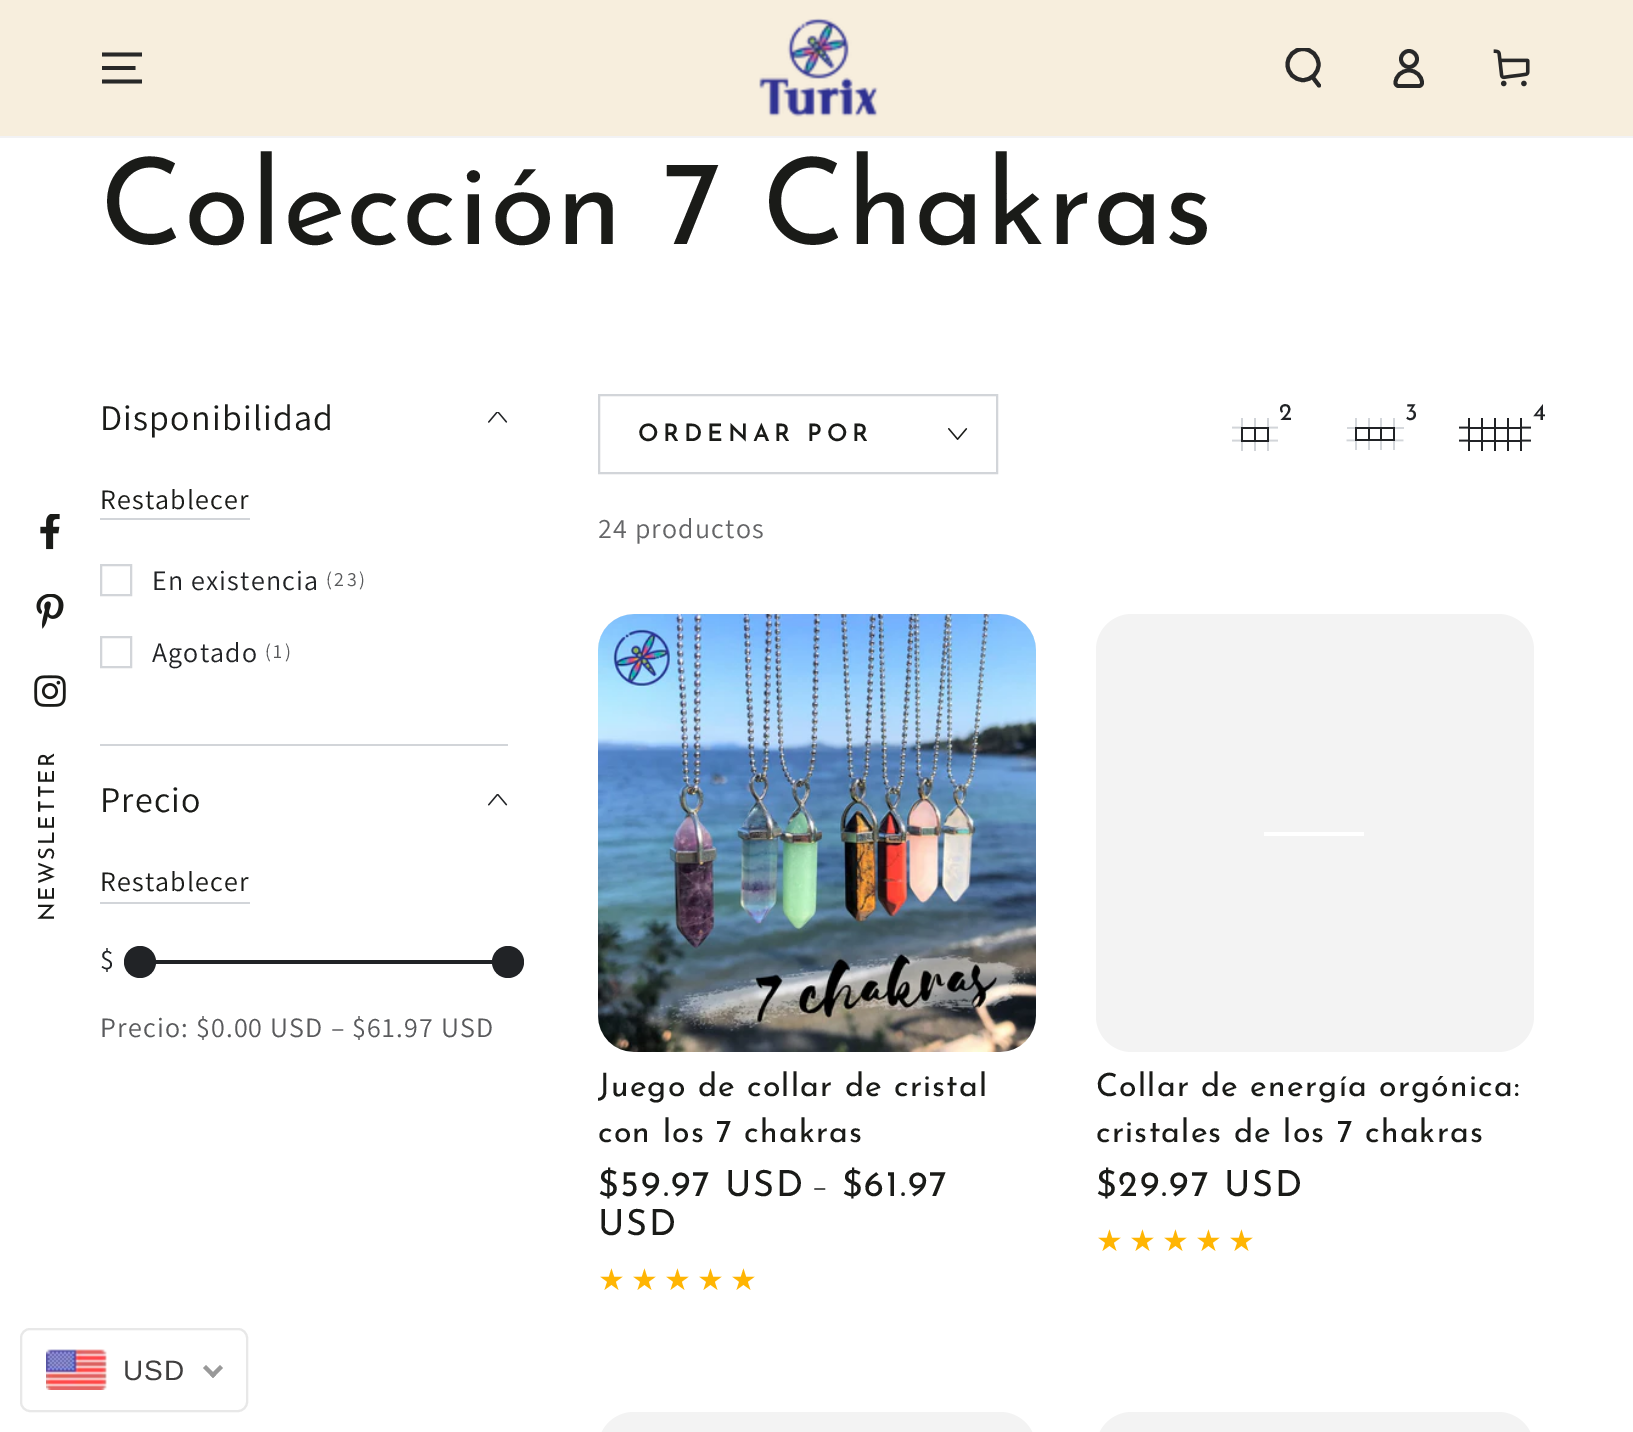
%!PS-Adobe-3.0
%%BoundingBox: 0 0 1633 1432
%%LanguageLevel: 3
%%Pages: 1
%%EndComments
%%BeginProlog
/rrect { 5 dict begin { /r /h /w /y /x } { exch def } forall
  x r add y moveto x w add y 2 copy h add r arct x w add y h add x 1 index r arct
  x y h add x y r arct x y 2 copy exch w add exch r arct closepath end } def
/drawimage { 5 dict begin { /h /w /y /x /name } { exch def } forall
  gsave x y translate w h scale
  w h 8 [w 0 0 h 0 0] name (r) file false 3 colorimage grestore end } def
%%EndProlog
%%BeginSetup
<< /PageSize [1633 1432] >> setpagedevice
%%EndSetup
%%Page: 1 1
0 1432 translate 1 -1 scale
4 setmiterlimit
1 setgray
0 0 1633 1432 rectfill
(images/1.raw) 40 514 20 36 drawimage
(images/2.raw) 36 594 28 35 drawimage
(images/3.raw) 34 675 32 32 drawimage
0.949 0.949 0.957 setrgbcolor
0 136 1633 2 rectfill
0.969 0.933 0.867 setrgbcolor
0 0 1633 136 rectfill
0.157 setgray
3.8 setlinewidth
newpath 102 81.5 moveto 142 81.5 lineto 102 68 moveto 135.5 68 lineto 102 54.5 moveto 142 54.5 lineto stroke
(images/4.raw) 759 18 119 99 drawimage
gsave
1284 48 40 40 rectclip
4 setlinewidth
newpath 1303 64.5 15.5 0 360 arc closepath stroke
grestore
4 setlinewidth
1 setlinecap
newpath 1312.5 77 moveto 1319 85.5 lineto stroke
3.8 setlinewidth
0 setlinecap
newpath 1409 70.5 moveto 1401.5 70.5 1395.5 76 1395.5 83 curveto 1395.5 84.5 1397 86 1398.5 86 curveto 1419 86 lineto 1420.5 86 1422 84.5 1422 83 curveto 1422 76 1416 70.5 1409 70.5 curveto closepath stroke
newpath 1409 59 8 0 360 arc closepath stroke
(images/5.raw) 1493 49 37 38 drawimage
(images/6.raw) 488 412 20 11 drawimage
0.824 0.835 0.851 setrgbcolor
100 518 150 2 rectfill
2 setlinewidth
101 565 30 30 rectstroke
101 637 30 30 rectstroke
100 744 408 2 rectfill
(images/7.raw) 488 794 20 12 drawimage
100 902 150 2 rectfill
0.129 0.137 0.149 setrgbcolor
155 960 338 4 rectfill
newpath 140 962 16 0 360 arc closepath fill
newpath 508 962 16 0 360 arc closepath fill
(images/8.raw) 1232 418 46 33 drawimage
(images/9.raw) 1346 418 58 32 drawimage
(images/10.raw) 1459 418 72 33 drawimage
0.824 0.835 0.851 setrgbcolor
599 395 398 78 rectstroke
(images/11.raw) 948 428 20 12 drawimage
0.953 setgray
598 614 438 438 36 rrect fill
(images/12.raw) 598 614 438 438 drawimage
1096 614 438 438 36 rrect fill
1 setgray
1264 832 100 4 rectfill
0.953 setgray
598 1412 438 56 36 rrect fill
1096 1412 438 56 36 rrect fill
0.91 setgray
21 1329 226 82 9 rrect stroke
(images/13.raw) 46 1349 61 41 drawimage
0.6 setgray
newpath 220 1365 moveto 223 1368 lineto 213 1378 lineto 210 1375 lineto closepath fill
newpath 206 1365 moveto 216 1375 lineto 213 1378 lineto 203 1368 lineto closepath fill
/JosefinSans-Regular [22 0 0 -22 0 0] selectfont
0.102 0.106 0.094 setrgbcolor
gsave 54 921 translate -90 rotate 0 0 moveto 2 0 (NEWSLETTER) ashow grestore
/JosefinSans-Regular [120 0 0 -120 0 0] selectfont
100 244 moveto 1.2 0 (Colección 7 Chakras) ashow
/Assistant-Regular [36 0 0 -36 0 0] selectfont
100 430 moveto 1.2 0 (Disponibilidad) ashow
/Assistant-Regular [28 0 0 -28 0 0] selectfont
100 509 moveto 1.2 0 (Restablecer) ashow
0.129 0.137 0.149 setrgbcolor
152 590 moveto 1.2 0 (En existencia) ashow
/Assistant-Regular [20 0 0 -20 0 0] selectfont
0.349 0.353 0.361 setrgbcolor
326 586 moveto 2.5 0 (\(23\)) ashow
/Assistant-Regular [28 0 0 -28 0 0] selectfont
0.129 0.137 0.149 setrgbcolor
152 662 moveto 1.2 0 (Agotado) ashow
/Assistant-Regular [20 0 0 -20 0 0] selectfont
0.349 0.353 0.361 setrgbcolor
265 658 moveto 2.5 0 (\(1\)) ashow
/Assistant-Regular [36 0 0 -36 0 0] selectfont
0.102 0.106 0.094 setrgbcolor
100 812 moveto 1.2 0 (Precio) ashow
/Assistant-Regular [28 0 0 -28 0 0] selectfont
100 891 moveto 1.2 0 (Restablecer) ashow
0.129 0.137 0.149 setrgbcolor
100 969 moveto 1.2 0 ($) ashow
0.349 0.353 0.361 setrgbcolor
100 1037 moveto 1.2 0 (Precio: $0.00 USD) ashow
331 1037 moveto 1.2 0 (– $61.97 USD) ashow
/JosefinSans-Regular [24 0 0 -24 0 0] selectfont
0.129 0.137 0.149 setrgbcolor
1279 420 moveto (2) show
1405 420 moveto (3) show
1533 420 moveto (4) show
/JosefinSans-SemiBold [24 0 0 -24 0 0] selectfont
0.102 0.106 0.094 setrgbcolor
638 441 moveto 4.75 0 (ORDENAR POR) ashow
/Assistant-Regular [28 0 0 -28 0 0] selectfont
0.392 0.396 0.404 setrgbcolor
598 538 moveto 1.2 0 (24 productos) ashow
/JosefinSans-Regular [32 0 0 -32 0 0] selectfont
0.102 0.106 0.094 setrgbcolor
598 1096 moveto 1.2 0 (Juego de collar de cristal) ashow
598 1142 moveto 1.2 0 (con los 7 chakras) ashow
/JosefinSans-Regular [36 0 0 -36 0 0] selectfont
598 1196 moveto 2 0 ($59.97 USD) ashow
/Assistant-Regular [28 0 0 -28 0 0] selectfont
813 1196 moveto 2 0 (–) ashow
/JosefinSans-Regular [36 0 0 -36 0 0] selectfont
842 1196 moveto 2 0 ($61.97) ashow
598 1235 moveto 2 0 (USD) ashow
/DejaVuSans-Regular [30 0 0 -30 0 0] selectfont
1 0.71 0.012 setrgbcolor
598 1290 moveto 6 0 (★★★★★) ashow
/JosefinSans-Regular [32 0 0 -32 0 0] selectfont
0.102 0.106 0.094 setrgbcolor
1096 1096 moveto 1.2 0 (Collar de energía orgónica:) ashow
1096 1142 moveto 1.2 0 (cristales de los 7 chakras) ashow
/JosefinSans-Regular [36 0 0 -36 0 0] selectfont
1096 1196 moveto 2 0 ($29.97 USD) ashow
/DejaVuSans-Regular [30 0 0 -30 0 0] selectfont
1 0.71 0.012 setrgbcolor
1096 1251 moveto 6 0 (★★★★★) ashow
/LiberationSans-Regular [28 0 0 -28 0 0] selectfont
0.251 0.247 0.247 setrgbcolor
123 1380 moveto 1.2 0 (USD) ashow
showpage
%%EOF
